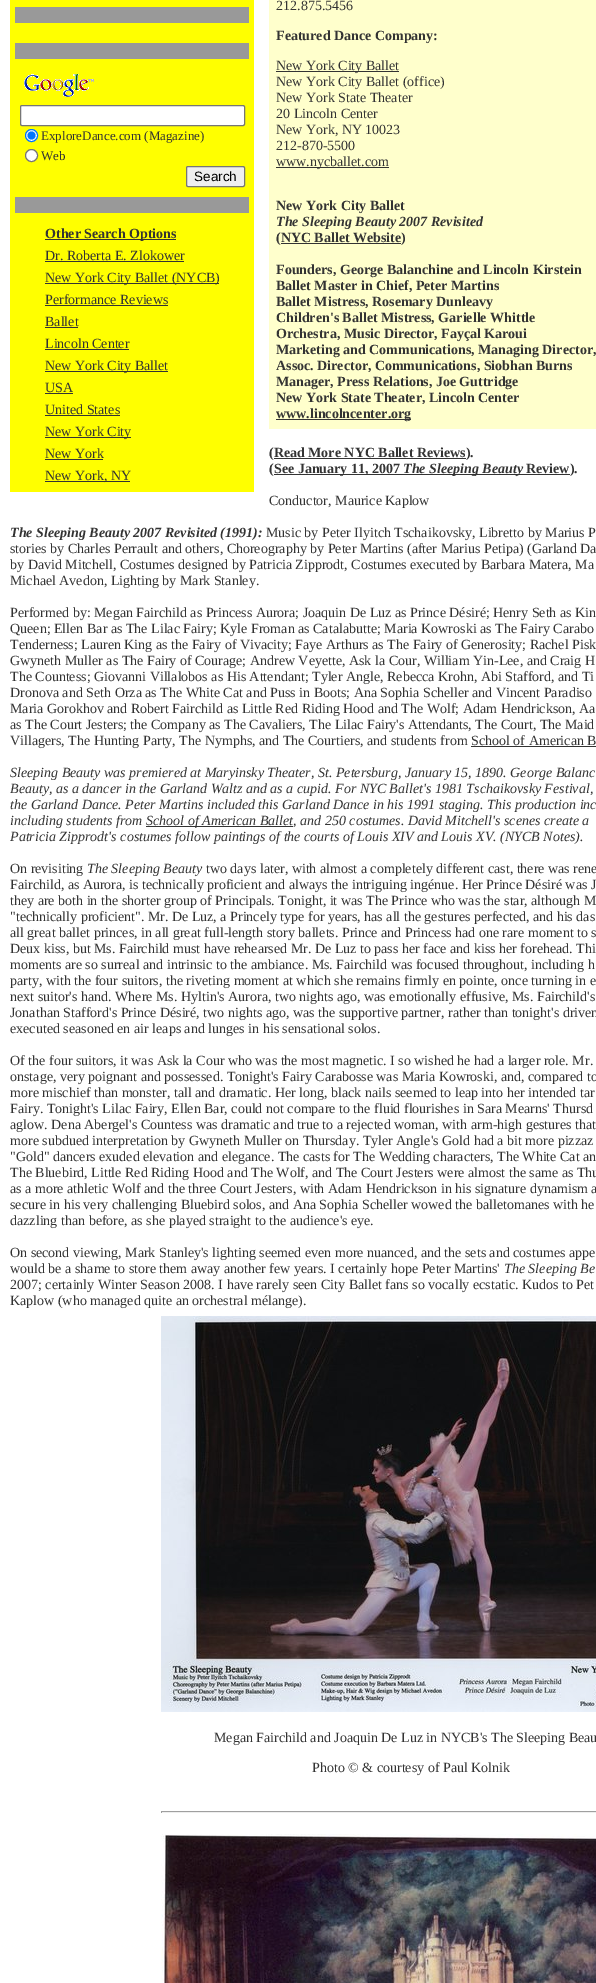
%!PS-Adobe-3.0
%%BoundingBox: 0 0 596 1983
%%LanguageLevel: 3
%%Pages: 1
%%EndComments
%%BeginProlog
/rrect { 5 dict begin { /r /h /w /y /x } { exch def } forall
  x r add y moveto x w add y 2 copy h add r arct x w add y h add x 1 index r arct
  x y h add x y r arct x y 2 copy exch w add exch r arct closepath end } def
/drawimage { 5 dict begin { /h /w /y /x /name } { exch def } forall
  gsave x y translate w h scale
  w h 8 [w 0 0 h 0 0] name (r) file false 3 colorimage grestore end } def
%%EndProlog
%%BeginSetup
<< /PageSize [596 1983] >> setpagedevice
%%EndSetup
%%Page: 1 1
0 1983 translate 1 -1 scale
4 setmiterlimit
1 setgray
0 0 596 1983 rectfill
1 1 0 setrgbcolor
10 0 244 492 rectfill
0.6 setgray
15 7 234 16 rectfill
15 43 234 16 rectfill
(images/1.raw) 24 74 70 23 drawimage
1 setgray
20.5 105.5 224 20 1.5 rrect gsave fill grestore
0.463 setgray
stroke
1 setgray
newpath 31.5 135.5 6 0 360 arc closepath gsave fill grestore
0 0.459 1 setrgbcolor
stroke
newpath 31.5 135.5 4 0 360 arc closepath fill
1 setgray
newpath 31.5 155.5 6 0 360 arc closepath gsave fill grestore
0.463 setgray
stroke
0.937 setgray
186.5 166.5 58 20 1.5 rrect gsave fill grestore
0.463 setgray
stroke
0.6 setgray
15 197 234 16 rectfill
0.2 setgray
45 239 131 1 rectfill
45 261 139 1 rectfill
45 283 174 1 rectfill
45 305 123 1 rectfill
45 327 33 1 rectfill
45 349 84 1 rectfill
45 371 123 1 rectfill
45 393 28 1 rectfill
45 415 75 1 rectfill
45 437 86 1 rectfill
45 459 58 1 rectfill
45 481 85 1 rectfill
1 1 0.8 setrgbcolor
269 0 327 429 rectfill
0.2 setgray
276 71 123 1 rectfill
276 167 113 1 rectfill
281 243 120 1 rectfill
276 419 135 1 rectfill
274 458 192 1 rectfill
274 474 296 1 rectfill
471 746 125 1 rectfill
146 826 147 1 rectfill
(images/2.raw) 161 1316 435 396 drawimage
0.624 setgray
161 1811 435 1 rectfill
0.933 setgray
161 1812 435 1 rectfill
0.624 setgray
161 1811 1 2 rectfill
(images/3.raw) 161 1834 435 149 drawimage
/LiberationSerif-Regular [13 0 0 -13 0 0] selectfont
0.2 setgray
41 140 moveto (ExploreDance.com \(Magazine\)) show
41 160 moveto (Web) show
/LiberationSans-Regular [13.5 0 0 -13.5 0 0] selectfont
0 setgray
194 181 moveto (Search) show
/LiberationSerif-Bold [14 0 0 -14 0 0] selectfont
0.2 setgray
45 238 moveto (Other Search Options) show
/LiberationSerif-Regular [14 0 0 -14 0 0] selectfont
45 260 moveto (Dr. Roberta E. Zlokower) show
45 282 moveto (New York City Ballet \(NYCB\)) show
45 304 moveto (Performance Reviews) show
45 326 moveto (Ballet) show
45 348 moveto (Lincoln Center) show
45 370 moveto (New York City Ballet) show
45 392 moveto (USA) show
45 414 moveto (United States) show
45 436 moveto (New York City) show
45 458 moveto (New York) show
45 480 moveto (New York, NY) show
276 10 moveto (212.875.5456) show
/LiberationSerif-Bold [14 0 0 -14 0 0] selectfont
276 40 moveto (Featured Dance Company:) show
/LiberationSerif-Regular [14 0 0 -14 0 0] selectfont
276 70 moveto (New York City Ballet) show
276 86 moveto (New York City Ballet \(office\)) show
276 102 moveto (New York State Theater) show
276 118 moveto (20 Lincoln Center) show
276 134 moveto (New York, NY 10023) show
276 150 moveto (212-870-5500) show
276 166 moveto (www.nycballet.com) show
/LiberationSerif-Bold [14 0 0 -14 0 0] selectfont
276 210 moveto (New York City Ballet) show
/LiberationSerif-BoldItalic [14 0 0 -14 0 0] selectfont
276 226 moveto (The Sleeping Beauty 2007 Revisited) show
/LiberationSerif-Bold [14 0 0 -14 0 0] selectfont
276 242 moveto (\(NYC Ballet Website\)) show
276 274 moveto (Founders, George Balanchine and Lincoln Kirstein) show
276 290 moveto (Ballet Master in Chief, Peter Martins) show
276 306 moveto (Ballet Mistress, Rosemary Dunleavy) show
276 322 moveto (Children's Ballet Mistress, Garielle Whittle) show
276 338 moveto (Orchestra, Music Director, Fayçal Karoui) show
276 354 moveto (Marketing and Communications, Managing Director,) show
276 370 moveto (Assoc. Director, Communications, Siobhan Burns) show
276 386 moveto (Manager, Press Relations, Joe Guttridge) show
276 402 moveto (New York State Theater, Lincoln Center) show
276 418 moveto (www.lincolncenter.org) show
269 457 moveto (\(Read More NYC Ballet Reviews\).) show
269 473 moveto (\() show
274 473 moveto (See January 11, 2007) show
/LiberationSerif-BoldItalic [14 0 0 -14 0 0] selectfont
403 473 moveto (The Sleeping Beauty) show
/LiberationSerif-Bold [14 0 0 -14 0 0] selectfont
526 473 moveto (Review\).) show
/LiberationSerif-Regular [14 0 0 -14 0 0] selectfont
269 505 moveto (Conductor, Maurice Kaplow) show
/LiberationSerif-BoldItalic [14 0 0 -14 0 0] selectfont
10 537 moveto (The Sleeping Beauty 2007 Revisited \(1991\):) show
/LiberationSerif-Regular [14 0 0 -14 0 0] selectfont
266 537 moveto (Music by Peter Ilyitch Tschaikovsky, Libretto by Marius P) show
10 553 moveto (stories by Charles Perrault and others, Choreography by Peter Martins \(after Marius Petipa\) \(Garland Da) show
10 569 moveto (by David Mitchell, Costumes designed by Patricia Zipprodt, Costumes executed by Barbara Matera, Ma) show
10 585 moveto (Michael Avedon, Lighting by Mark Stanley.) show
10 617 moveto (Performed by: Megan Fairchild as Princess Aurora; Joaquin De Luz as Prince Désiré; Henry Seth as Kin) show
10 633 moveto (Queen; Ellen Bar as The Lilac Fairy; Kyle Froman as Catalabutte; Maria Kowroski as The Fairy Carabo) show
10 649 moveto (Tenderness; Lauren King as the Fairy of Vivacity; Faye Arthurs as The Fairy of Generosity; Rachel Pisk) show
10 665 moveto (Gwyneth Muller as The Fairy of Courage; Andrew Veyette, Ask la Cour, William Yin-Lee, and Craig H) show
10 681 moveto (The Countess; Giovanni Villalobos as His Attendant; Tyler Angle, Rebecca Krohn, Abi Stafford, and Ti) show
10 697 moveto (Dronova and Seth Orza as The White Cat and Puss in Boots; Ana Sophia Scheller and Vincent Paradiso) show
10 713 moveto (Maria Gorokhov and Robert Fairchild as Little Red Riding Hood and The Wolf; Adam Hendrickson, Aa) show
10 729 moveto (as The Court Jesters; the Company as The Cavaliers, The Lilac Fairy's Attendants, The Court, The Maid) show
10 745 moveto (Villagers, The Hunting Party, The Nymphs, and The Courtiers, and students from School of American B) show
/LiberationSerif-Italic [14 0 0 -14 0 0] selectfont
10 777 moveto (Sleeping Beauty was premiered at Maryinsky Theater, St. Petersburg, January 15, 1890. George Balanc) show
10 793 moveto (Beauty, as a dancer in the Garland Waltz and as a cupid. For NYC Ballet's 1981 Tschaikovsky Festival,) show
10 809 moveto (the Garland Dance. Peter Martins included this Garland Dance in his 1991 staging. This production inc) show
10 825 moveto (including students from) show
146 825 moveto (School of American Ballet, and 250 costumes. David Mitchell's scenes create a) show
10 841 moveto (Patricia Zipprodt's costumes follow paintings of the courts of Louis XIV and Louis XV. \(NYCB Notes\).) show
/LiberationSerif-Regular [14 0 0 -14 0 0] selectfont
10 873 moveto (On revisiting) show
/LiberationSerif-Italic [14 0 0 -14 0 0] selectfont
87 873 moveto (The Sleeping Beauty) show
/LiberationSerif-Regular [14 0 0 -14 0 0] selectfont
206 873 moveto (two days later, with almost a completely different cast, there was rene) show
10 889 moveto (Fairchild, as Aurora, is technically proficient and always the intriguing ingénue. Her Prince Désiré was J) show
10 905 moveto (they are both in the shorter group of Principals. Tonight, it was The Prince who was the star, although M) show
10 921 moveto ("technically proficient". Mr. De Luz, a Princely type for years, has all the gestures perfected, and his das) show
10 937 moveto (all great ballet princes, in all great full-length story ballets. Prince and Princess had one rare moment to s) show
10 953 moveto (Deux kiss, but Ms. Fairchild must have rehearsed Mr. De Luz to pass her face and kiss her forehead. Thi) show
10 969 moveto (moments are so surreal and intrinsic to the ambiance. Ms. Fairchild was focused throughout, including h) show
10 985 moveto (party, with the four suitors, the riveting moment at which she remains firmly en pointe, once turning in e) show
10 1001 moveto (next suitor's hand. Where Ms. Hyltin's Aurora, two nights ago, was emotionally effusive, Ms. Fairchild's) show
10 1017 moveto (Jonathan Stafford's Prince Désiré, two nights ago, was the supportive partner, rather than tonight's driven) show
10 1033 moveto (executed seasoned en air leaps and lunges in his sensational solos.) show
10 1065 moveto (Of the four suitors, it was Ask la Cour who was the most magnetic. I so wished he had a larger role. Mr.) show
10 1081 moveto (onstage, very poignant and possessed. Tonight's Fairy Carabosse was Maria Kowroski, and, compared to) show
10 1097 moveto (more mischief than monster, tall and dramatic. Her long, black nails seemed to leap into her intended tar) show
10 1113 moveto (Fairy. Tonight's Lilac Fairy, Ellen Bar, could not compare to the fluid flourishes in Sara Mearns' Thursd) show
10 1129 moveto (aglow. Dena Abergel's Countess was dramatic and true to a rejected woman, with arm-high gestures that) show
10 1145 moveto (more subdued interpretation by Gwyneth Muller on Thursday. Tyler Angle's Gold had a bit more pizzaz) show
10 1161 moveto ("Gold" dancers exuded elevation and elegance. The casts for The Wedding characters, The White Cat an) show
10 1177 moveto (The Bluebird, Little Red Riding Hood and The Wolf, and The Court Jesters were almost the same as Thu) show
10 1193 moveto (as a more athletic Wolf and the three Court Jesters, with Adam Hendrickson in his signature dynamism a) show
10 1209 moveto (secure in his very challenging Bluebird solos, and Ana Sophia Scheller wowed the balletomanes with he) show
10 1225 moveto (dazzling than before, as she played straight to the audience's eye.) show
10 1257 moveto (On second viewing, Mark Stanley's lighting seemed even more nuanced, and the sets and costumes appe) show
10 1273 moveto (would be a shame to store them away another few years. I certainly hope Peter Martins') show
/LiberationSerif-Italic [14 0 0 -14 0 0] selectfont
504 1273 moveto (The Sleeping Be) show
/LiberationSerif-Regular [14 0 0 -14 0 0] selectfont
10 1289 moveto (2007; certainly Winter Season 2008. I have rarely seen City Ballet fans so vocally ecstatic. Kudos to Pet) show
10 1305 moveto (Kaplow \(who managed quite an orchestral mélange\).) show
214 1742 moveto (Megan Fairchild and Joaquin De Luz in NYCB's The Sleeping Beau) show
312 1772 moveto (Photo © & courtesy of Paul Kolnik) show
showpage
%%EOF
